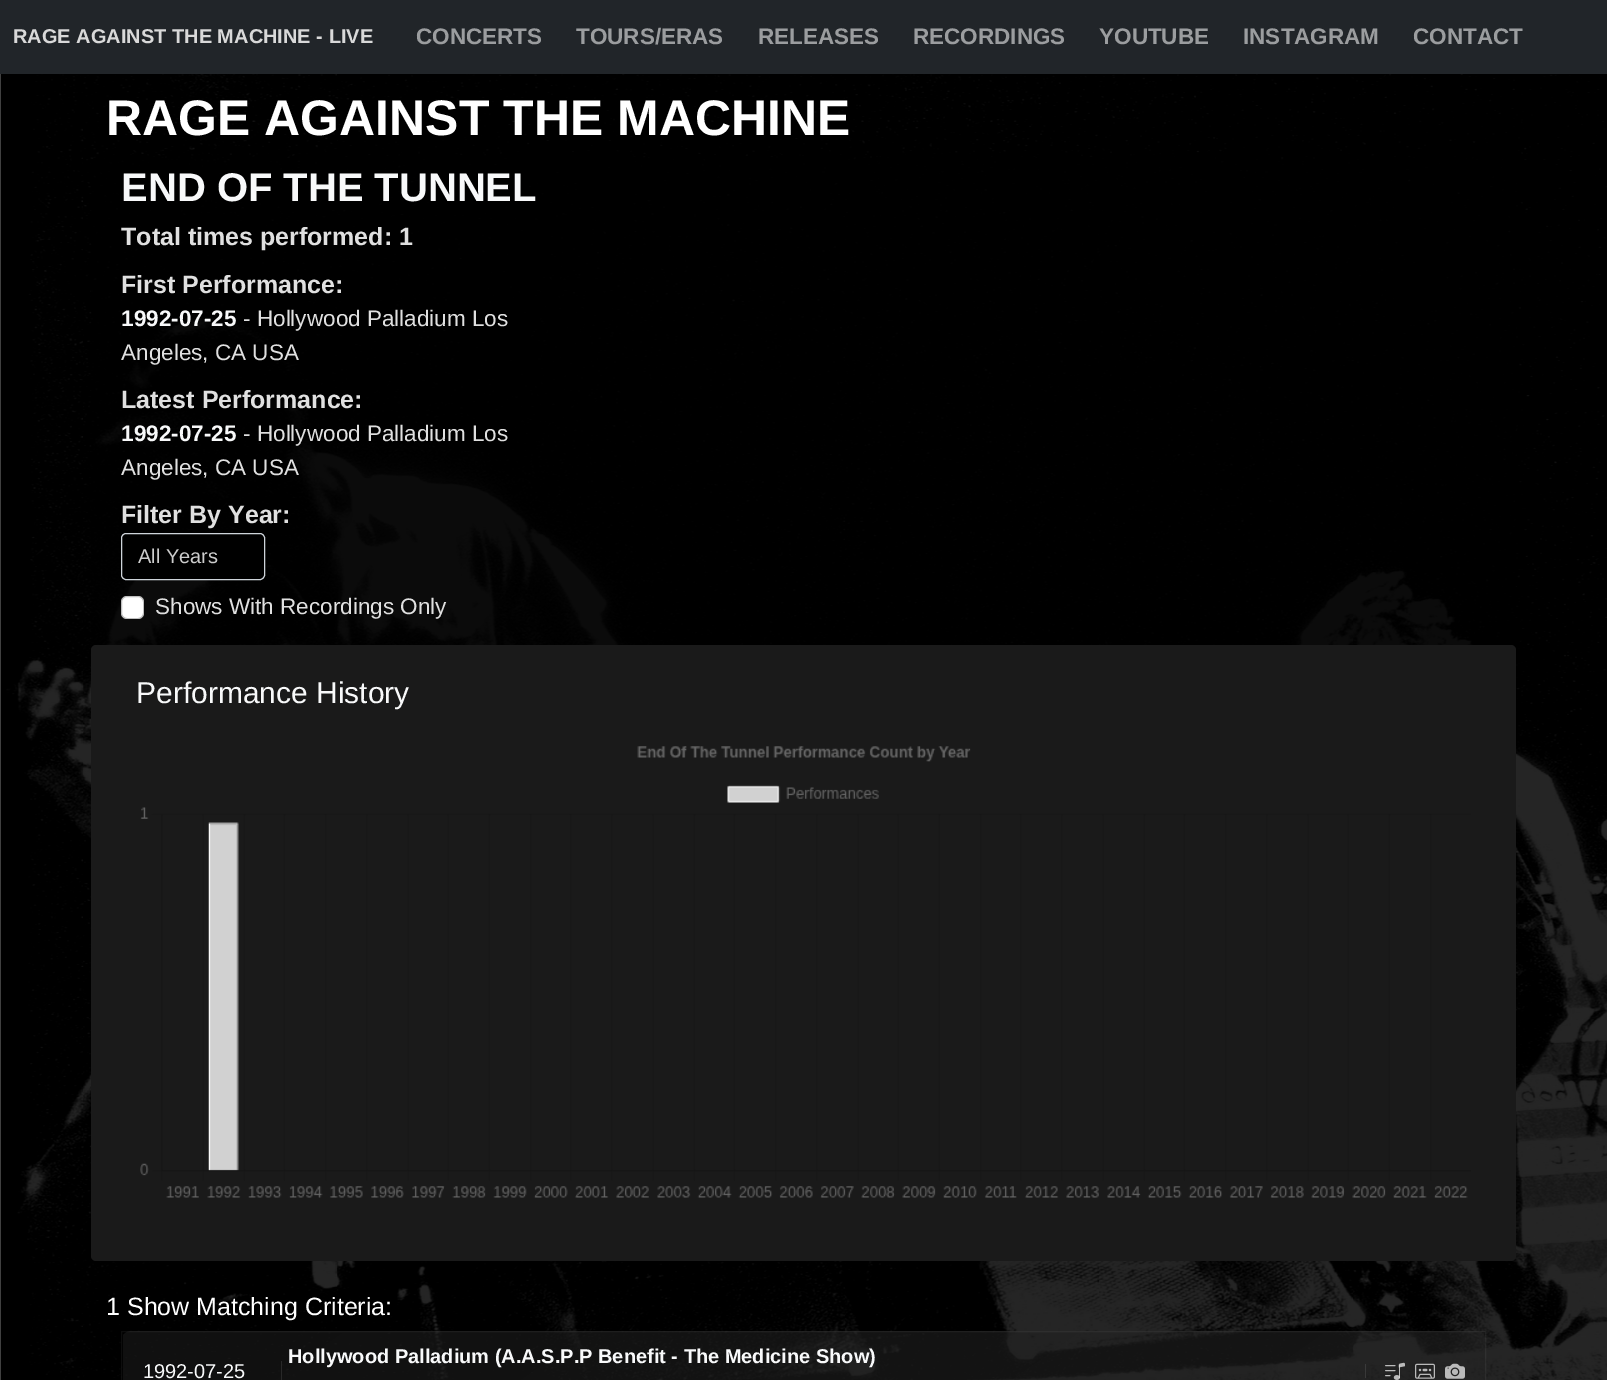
%!PS-Adobe-3.0
%%BoundingBox: 0 0 1607 1380
%%LanguageLevel: 3
%%Pages: 1
%%EndComments
%%BeginProlog
/setalpha { dup .setfillconstantalpha .setstrokeconstantalpha } def
/rrect { 5 dict begin { /r /h /w /y /x } { exch def } forall
  x r add y moveto x w add y 2 copy h add r arct x w add y h add x 1 index r arct
  x y h add x y r arct x y 2 copy exch w add exch r arct closepath end } def
/drawimage { 5 dict begin { /h /w /y /x /name } { exch def } forall
  gsave x y translate w h scale
  w h 8 [w 0 0 h 0 0] name (r) file false 3 colorimage grestore end } def
%%EndProlog
%%BeginSetup
<< /PageSize [1607 1380] /PageUsesTransparency true >> setpagedevice
%%EndSetup
%%Page: 1 1
0 .pushpdf14devicefilter
0 1380 translate 1 -1 scale
4 setmiterlimit
1 setgray
0 0 1607 1380 rectfill
0.129 0.145 0.161 setrgbcolor
0 0 1607 74 rectfill
(images/1.raw) 0 74 1607 1306 drawimage
0.7 setalpha
0 setgray
91 158 1425 487 5 rrect fill
1 setalpha
121.5 533.5 143 46 4.5 rrect gsave fill grestore
0.808 0.831 0.855 setrgbcolor
stroke
1 setgray
121 596 23 23 6 rrect fill
0.25 setalpha
0 setgray
121.5 596.5 22 22 5.5 rrect stroke
1 setalpha
0.102 setgray
91 645 1425 616 5 rrect fill
(images/2.raw) 140 746 1331 452 drawimage
0.05 setalpha
1 setgray
121.5 1331.5 1364 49 rectstroke
1 setalpha
0.157 setgray
281 1361 1 19 rectfill
0.1 setalpha
1 setgray
1365 1364 1 14 rectfill
1 setalpha
(images/3.raw) 1385 1362 20 18 drawimage
(images/4.raw) 1415 1363 20 16 drawimage
(images/5.raw) 1445 1363 20 16 drawimage
/LiberationSans-Bold [20 0 0 -20 0 0] selectfont
0.851 setgray
13 43 moveto (RAGE AGAINST THE MACHINE - LIVE) show
/LiberationSans-Bold [22.5 0 0 -22.5 0 0] selectfont
0.608 0.616 0.624 setrgbcolor
416 44 moveto (CONCERTS) show
576 44 moveto (TOURS/ERAS) show
758 44 moveto (RELEASES) show
913 44 moveto (RECORDINGS) show
1099 44 moveto (YOUTUBE) show
1243 44 moveto (INSTAGRAM) show
1413 44 moveto (CONTACT) show
/LiberationSans-Bold [50 0 0 -50 0 0] selectfont
1 setgray
106 135 moveto (RAGE AGAINST THE MACHINE) show
/LiberationSans-Bold [40 0 0 -40 0 0] selectfont
0.973 0.976 0.98 setrgbcolor
121 201 moveto (END OF THE TUNNEL) show
/LiberationSans-Bold [25 0 0 -25 0 0] selectfont
0.878 setgray
121 245 moveto (Total times performed: 1) show
121 293 moveto (First Performance:) show
/LiberationSans-Bold [22.5 0 0 -22.5 0 0] selectfont
0.973 0.976 0.98 setrgbcolor
121 326 moveto (1992-07-25) show
/LiberationSans-Regular [22.5 0 0 -22.5 0 0] selectfont
0.878 setgray
243 326 moveto (- Hollywood Palladium Los) show
121 360 moveto (Angeles, CA USA) show
/LiberationSans-Bold [25 0 0 -25 0 0] selectfont
121 408 moveto (Latest Performance:) show
/LiberationSans-Bold [22.5 0 0 -22.5 0 0] selectfont
0.973 0.976 0.98 setrgbcolor
121 441 moveto (1992-07-25) show
/LiberationSans-Regular [22.5 0 0 -22.5 0 0] selectfont
0.878 setgray
243 441 moveto (- Hollywood Palladium Los) show
121 475 moveto (Angeles, CA USA) show
/LiberationSans-Bold [25 0 0 -25 0 0] selectfont
121 523 moveto (Filter By Year:) show
/LiberationSans-Regular [20 0 0 -20 0 0] selectfont
0.8 setgray
138 563 moveto (All Years) show
/LiberationSans-Regular [22.5 0 0 -22.5 0 0] selectfont
0.878 setgray
155 614 moveto (Shows With Recordings Only) show
/LiberationSans-Regular [30 0 0 -30 0 0] selectfont
0.973 0.976 0.98 setrgbcolor
136 703 moveto (Performance History) show
/LiberationSans-Regular [25 0 0 -25 0 0] selectfont
1 setgray
106 1315 moveto (1 Show Matching Criteria:) show
/LiberationSans-Bold [20 0 0 -20 0 0] selectfont
0.973 0.976 0.98 setrgbcolor
288 1363 moveto (Hollywood Palladium \(A.A.S.P.P Benefit - The Medicine Show\)) show
/LiberationSans-Regular [20 0 0 -20 0 0] selectfont
143 1378 moveto (1992-07-25) show
.poppdf14devicefilter showpage
%%EOF
